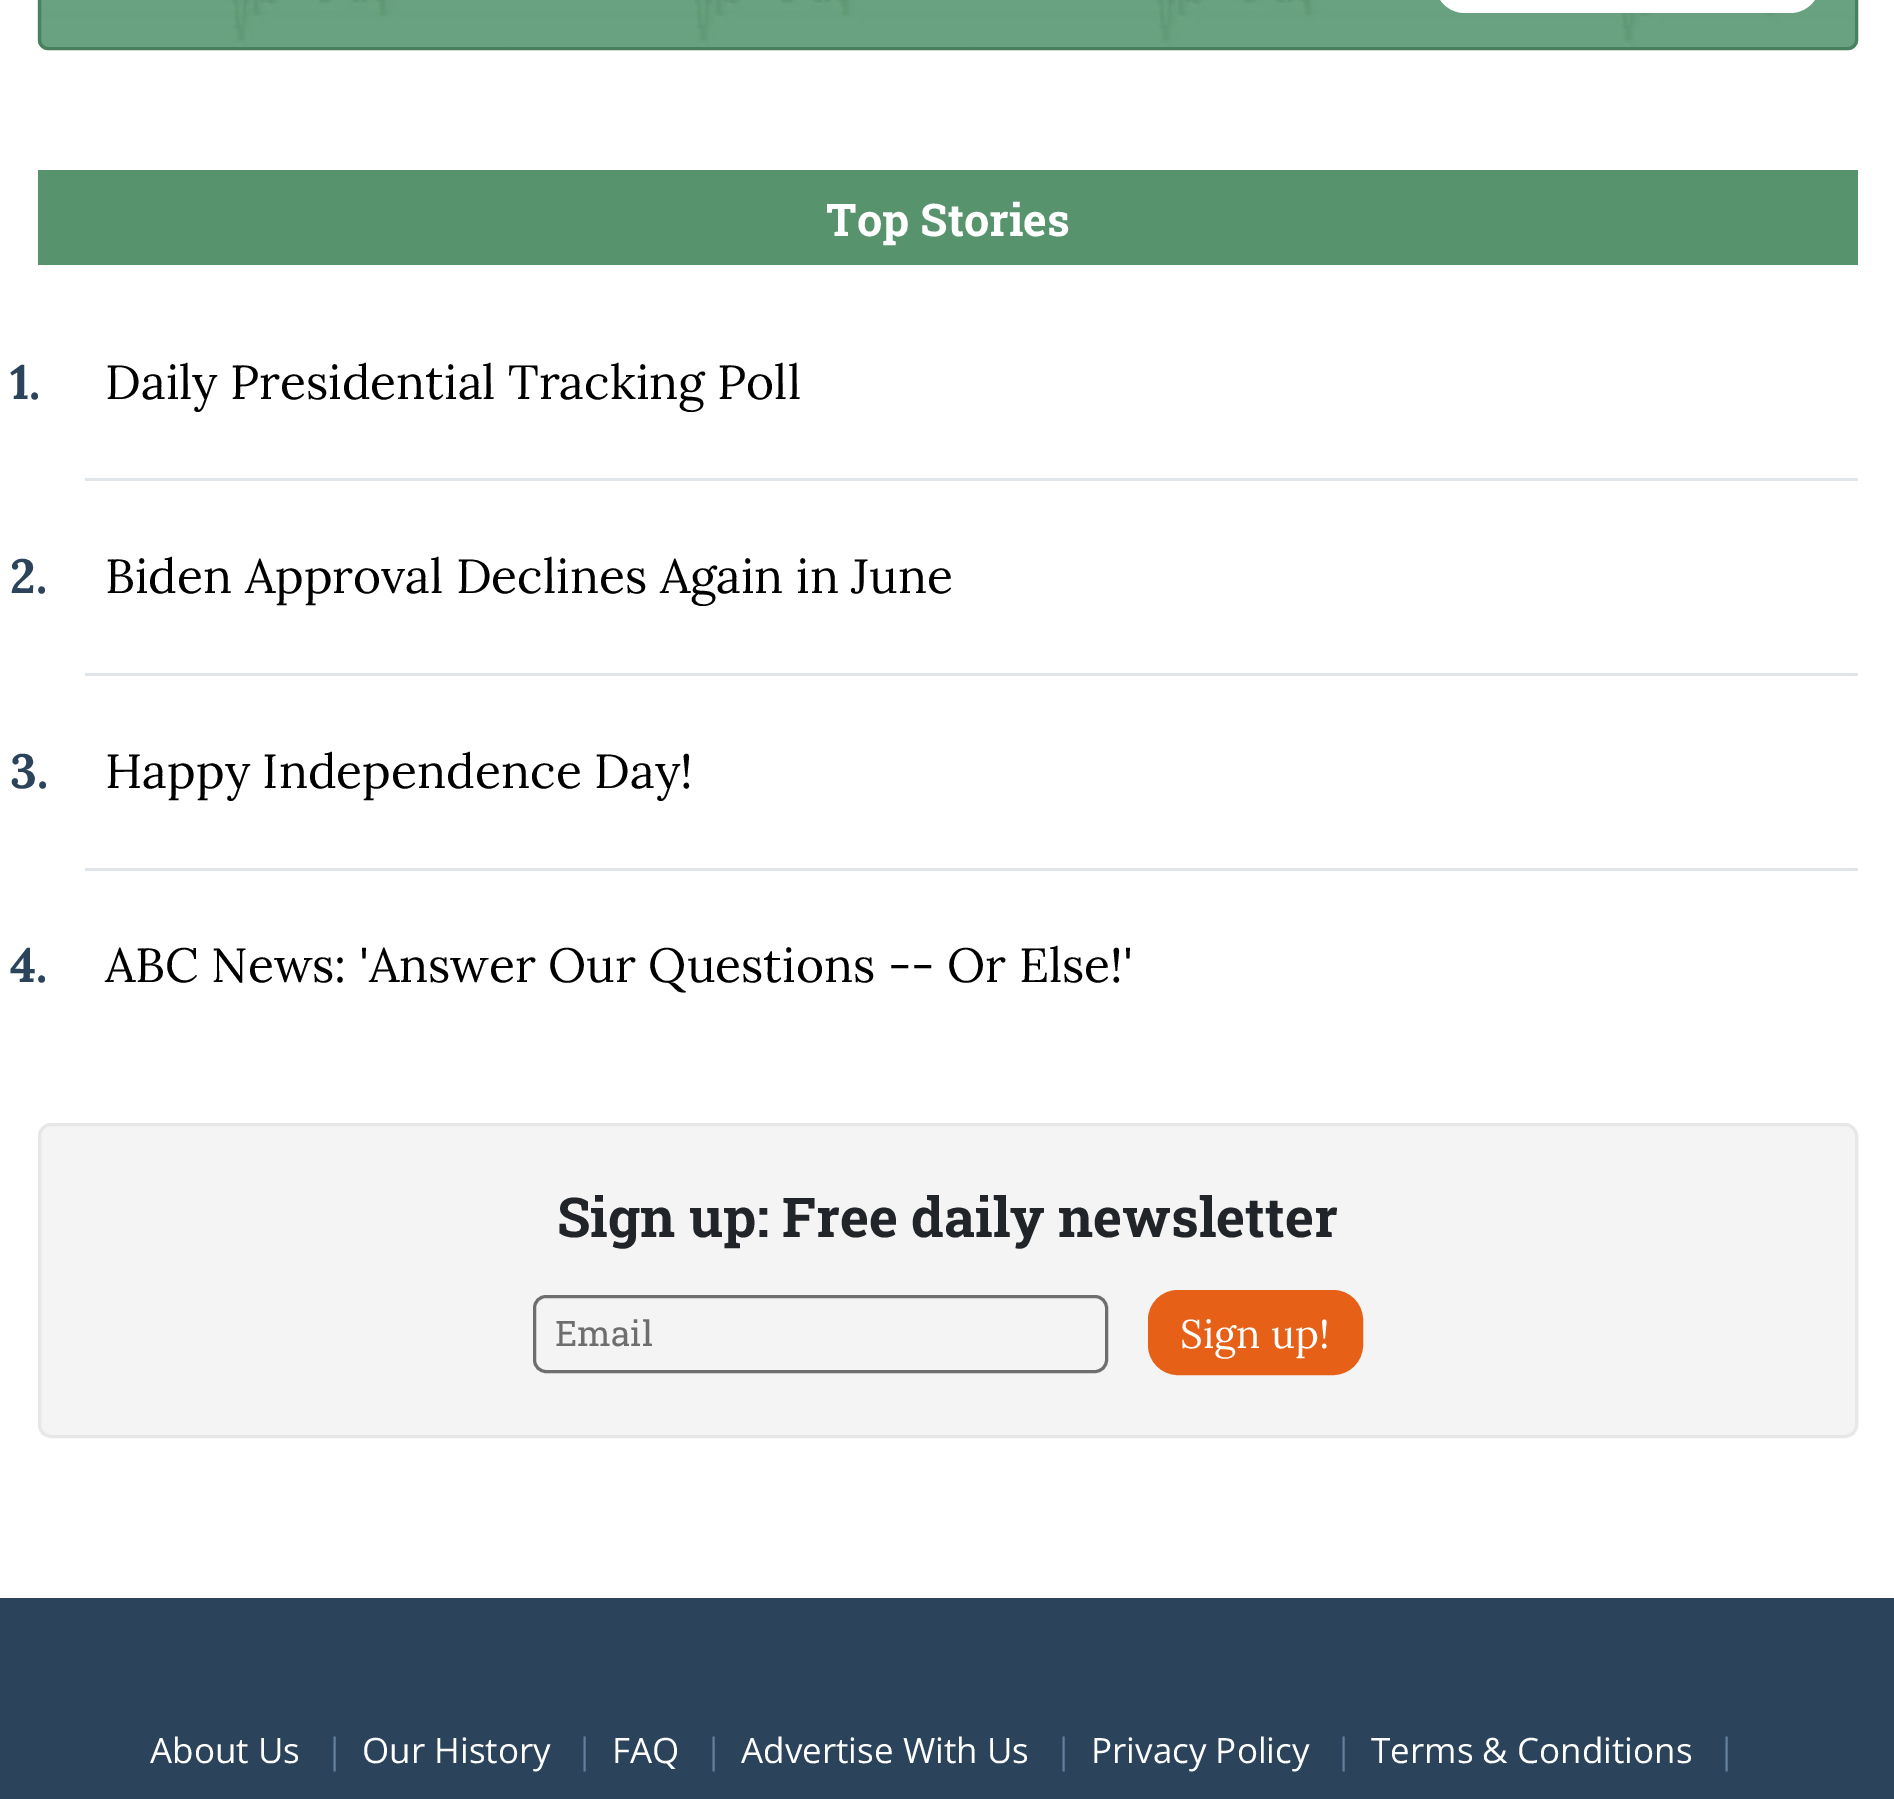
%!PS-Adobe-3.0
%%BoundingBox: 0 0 1894 1799
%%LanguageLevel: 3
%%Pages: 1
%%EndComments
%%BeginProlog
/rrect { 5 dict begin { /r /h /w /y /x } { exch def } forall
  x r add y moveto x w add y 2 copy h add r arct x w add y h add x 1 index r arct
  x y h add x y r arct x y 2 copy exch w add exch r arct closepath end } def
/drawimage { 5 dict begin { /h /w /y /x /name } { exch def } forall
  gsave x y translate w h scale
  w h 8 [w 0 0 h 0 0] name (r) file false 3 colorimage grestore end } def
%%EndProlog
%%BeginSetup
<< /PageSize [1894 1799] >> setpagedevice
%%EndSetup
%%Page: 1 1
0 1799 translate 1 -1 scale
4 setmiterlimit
1 setgray
0 0 1894 1799 rectfill
(images/1.raw) 37 0 1821 50 drawimage
0.278 0.506 0.365 setrgbcolor
3 setlinewidth
39.5 -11.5 1817 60 8.5 rrect stroke
1 setgray
1435 -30 385 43 30 rrect fill
0.341 0.58 0.431 setrgbcolor
38 170 1820 95 rectfill
0.875 0.898 0.91 setrgbcolor
85 478 1773 3 rectfill
85 673 1773 3 rectfill
85 868 1773 3 rectfill
0.957 setgray
39.5 1124.5 1817 312 11.5 rrect gsave fill grestore
0.906 setgray
stroke
0.431 setgray
534.5 1296.5 572 75 11.5 rrect stroke
0.902 0.376 0.09 setrgbcolor
1149.5 1291.5 212 82 28.5 rrect gsave fill grestore
stroke
0.169 0.263 0.357 setrgbcolor
0 1598 1894 201 rectfill
/RobotoSlab-Bold [45 0 0 -45 0 0] selectfont
1 setgray
826 236 moveto (Top Stories) show
/Lora-Bold [48 0 0 -48 0 0] selectfont
0.169 0.263 0.357 setrgbcolor
10 399 moveto (1.) show
/Lora-Regular [48 0 0 -48 0 0] selectfont
0 setgray
105 399 moveto (Daily Presidential Tracking Poll) show
/Lora-Bold [48 0 0 -48 0 0] selectfont
0.169 0.263 0.357 setrgbcolor
10 593 moveto (2.) show
/Lora-Regular [48 0 0 -48 0 0] selectfont
0 setgray
105 593 moveto (Biden Approval Declines Again in June) show
/Lora-Bold [48 0 0 -48 0 0] selectfont
0.169 0.263 0.357 setrgbcolor
10 788 moveto (3.) show
/Lora-Regular [48 0 0 -48 0 0] selectfont
0 setgray
105 788 moveto (Happy Independence Day!) show
/Lora-Bold [48 0 0 -48 0 0] selectfont
0.169 0.263 0.357 setrgbcolor
10 982 moveto (4.) show
/Lora-Regular [48 0 0 -48 0 0] selectfont
0 setgray
105 982 moveto (ABC News: 'Answer Our Questions -- Or Else!') show
/RobotoSlab-Bold [55 0 0 -55 0 0] selectfont
0.129 0.145 0.161 setrgbcolor
557 1237 moveto (Sign up: Free daily newsletter) show
/RobotoSlab-Regular [35 0 0 -35 0 0] selectfont
0.431 setgray
555 1346 moveto (Email) show
/Lora-Regular [40 0 0 -40 0 0] selectfont
1 setgray
1180 1348 moveto (Sign up!) show
/OpenSans-Regular [35 0 0 -35 0 0] selectfont
150 1763 moveto (About Us) show
0.392 0.502 0.616 setrgbcolor
325 1763 moveto (|) show
1 setgray
362 1763 moveto (Our History) show
0.392 0.502 0.616 setrgbcolor
575 1763 moveto (|) show
1 setgray
612 1763 moveto (FAQ) show
0.392 0.502 0.616 setrgbcolor
704 1763 moveto (|) show
1 setgray
741 1763 moveto (Advertise With Us) show
0.392 0.502 0.616 setrgbcolor
1054 1763 moveto (|) show
1 setgray
1091 1763 moveto (Privacy Policy) show
0.392 0.502 0.616 setrgbcolor
1334 1763 moveto (|) show
1 setgray
1371 1763 moveto (Terms & Conditions) show
0.392 0.502 0.616 setrgbcolor
1717 1763 moveto (|) show
showpage
%%EOF
